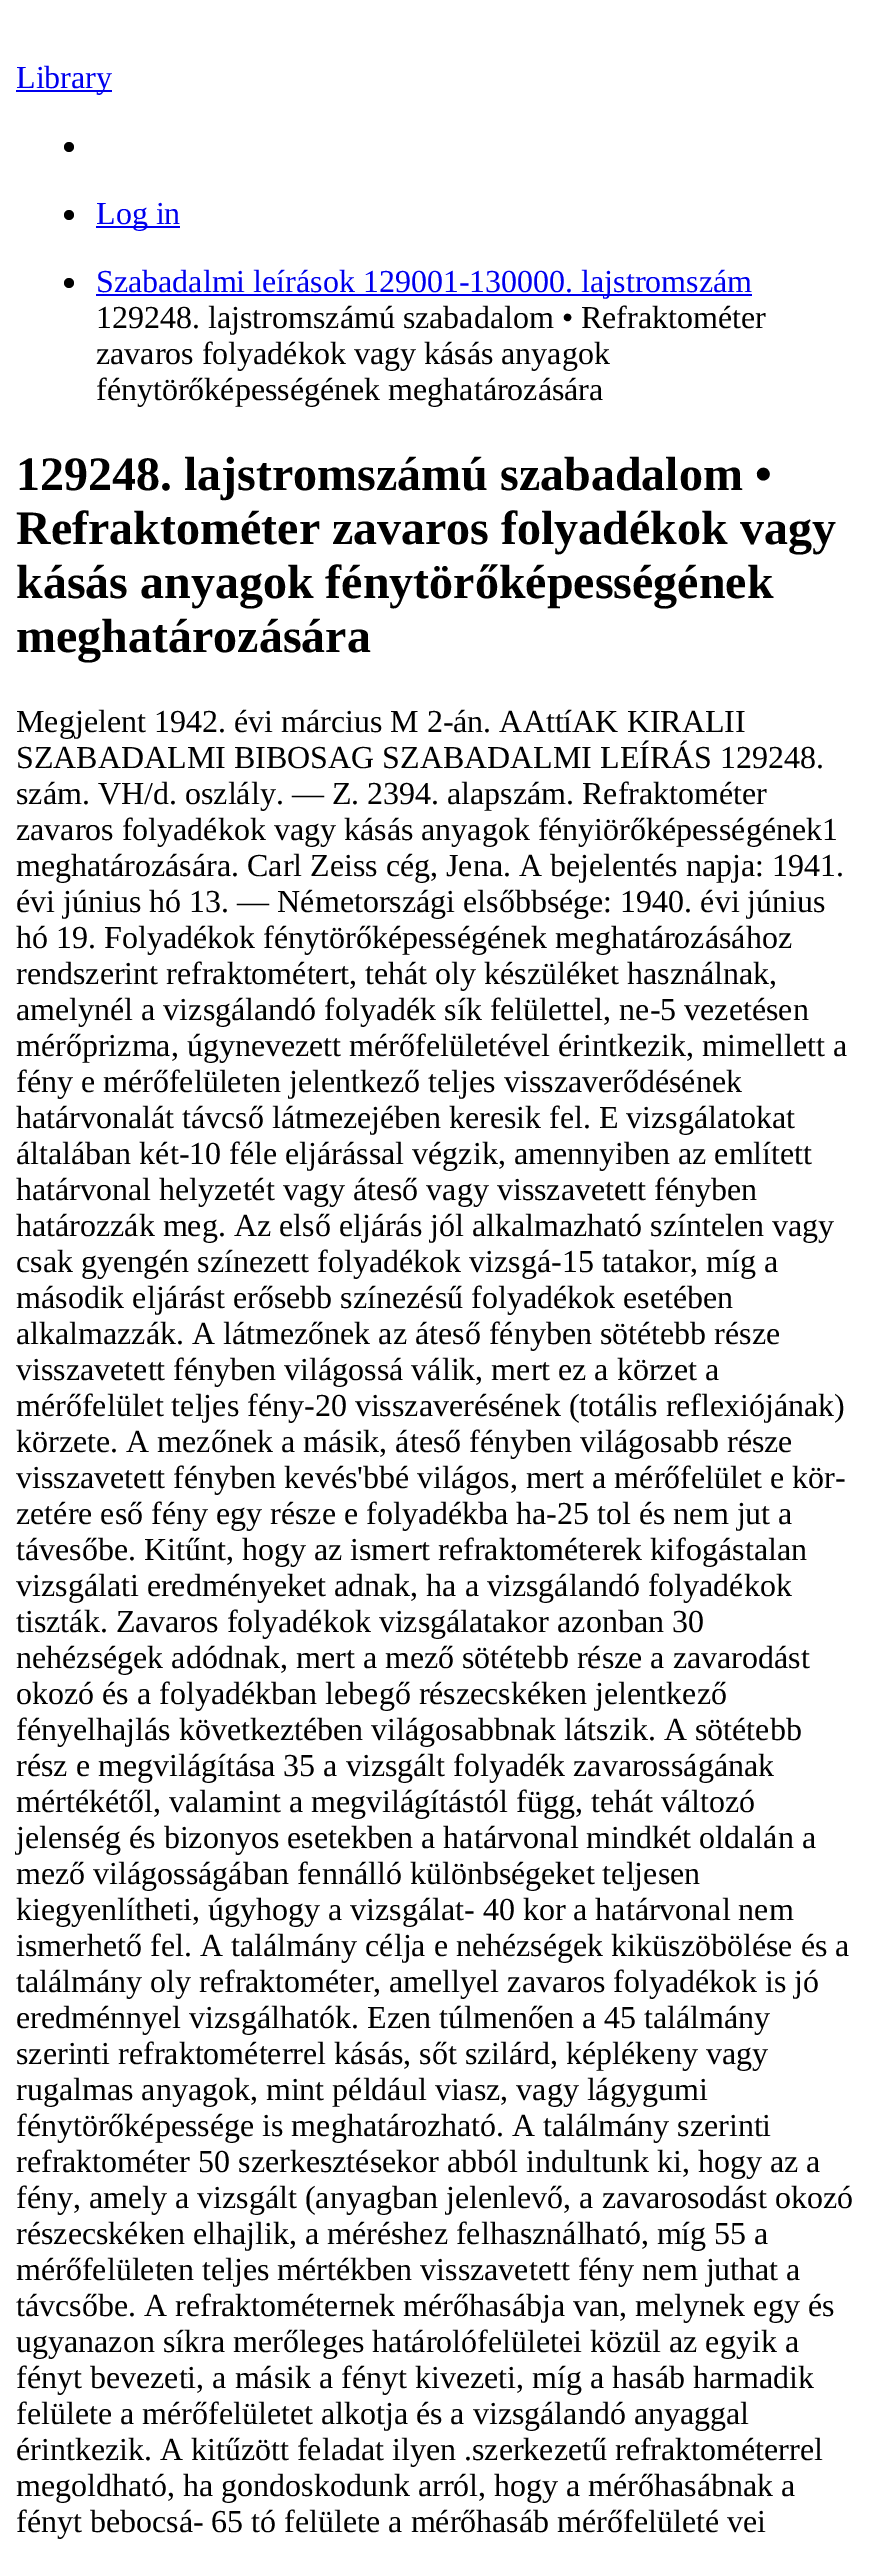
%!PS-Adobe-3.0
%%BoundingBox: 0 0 869 2551
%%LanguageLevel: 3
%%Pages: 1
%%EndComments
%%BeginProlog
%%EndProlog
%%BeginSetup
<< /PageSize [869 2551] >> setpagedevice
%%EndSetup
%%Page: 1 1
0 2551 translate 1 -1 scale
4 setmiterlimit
1 setgray
0 0 869 2551 rectfill
0 0 0.933 setrgbcolor
16 90 96 2 rectfill
0 setgray
newpath 69 147 5 0 360 arc closepath fill
newpath 69 215 5 0 360 arc closepath fill
0 0 0.933 setrgbcolor
96 226 84 2 rectfill
0 setgray
newpath 69 283 5 0 360 arc closepath fill
0 0 0.933 setrgbcolor
96 294 656 2 rectfill
/LiberationSerif-Regular [32 0 0 -32 0 0] selectfont
16 88 moveto (Library) show
96 224 moveto (Log in) show
96 292 moveto (Szabadalmi leírások 129001-130000. lajstromszám) show
0 setgray
96 328 moveto (129248. lajstromszámú szabadalom • Refraktométer) show
96 364 moveto (zavaros folyadékok vagy kásás anyagok) show
96 400 moveto (fénytörőképességének meghatározására) show
/LiberationSerif-Bold [48 0 0 -48 0 0] selectfont
16 490 moveto (129248. lajstromszámú szabadalom •) show
16 544 moveto (Refraktométer zavaros folyadékok vagy) show
16 598 moveto (kásás anyagok fénytörőképességének) show
16 652 moveto (meghatározására) show
/LiberationSerif-Regular [32 0 0 -32 0 0] selectfont
16 732 moveto (Megjelent 1942. évi március M 2-án. AAttíAK KIRALII) show
16 768 moveto (SZABADALMI BIBOSAG SZABADALMI LEÍRÁS 129248.) show
16 804 moveto (szám. VH/d. oszlály. — Z. 2394. alapszám. Refraktométer) show
16 840 moveto (zavaros folyadékok vagy kásás anyagok fényiörőképességének1) show
16 876 moveto (meghatározására. Carl Zeiss cég, Jena. A bejelentés napja: 1941.) show
16 912 moveto (évi június hó 13. — Németországi elsőbbsége: 1940. évi június) show
16 948 moveto (hó 19. Folyadékok fénytörőképességének meghatározásához) show
16 984 moveto (rendszerint refraktométert, tehát oly készüléket használnak,) show
16 1020 moveto (amelynél a vizsgálandó folyadék sík felülettel, ne-5 vezetésen) show
16 1056 moveto (mérőprizma, úgynevezett mérőfelületével érintkezik, mimellett a) show
16 1092 moveto (fény e mérőfelületen jelentkező teljes visszaverődésének) show
16 1128 moveto (határvonalát távcső látmezejében keresik fel. E vizsgálatokat) show
16 1164 moveto (általában két-10 féle eljárással végzik, amennyiben az említett) show
16 1200 moveto (határvonal helyzetét vagy áteső vagy visszavetett fényben) show
16 1236 moveto (határozzák meg. Az első eljárás jól alkalmazható színtelen vagy) show
16 1272 moveto (csak gyengén színezett folyadékok vizsgá-15 tatakor, míg a) show
16 1308 moveto (második eljárást erősebb színezésű folyadékok esetében) show
16 1344 moveto (alkalmazzák. A látmezőnek az áteső fényben sötétebb része) show
16 1380 moveto (visszavetett fényben világossá válik, mert ez a körzet a) show
16 1416 moveto (mérőfelület teljes fény-20 visszaverésének \(totális reflexiójának\)) show
16 1452 moveto (körzete. A mezőnek a másik, áteső fényben világosabb része) show
16 1488 moveto (visszavetett fényben kevés'bbé világos, mert a mérőfelület e kör-) show
16 1524 moveto (zetére eső fény egy része e folyadékba ha-25 tol és nem jut a) show
16 1560 moveto (távesőbe. Kitűnt, hogy az ismert refraktométerek kifogástalan) show
16 1596 moveto (vizsgálati eredményeket adnak, ha a vizsgálandó folyadékok) show
16 1632 moveto (tiszták. Zavaros folyadékok vizsgálatakor azonban 30) show
16 1668 moveto (nehézségek adódnak, mert a mező sötétebb része a zavarodást) show
16 1704 moveto (okozó és a folyadékban lebegő részecskéken jelentkező) show
16 1740 moveto (fényelhajlás következtében világosabbnak látszik. A sötétebb) show
16 1776 moveto (rész e megvilágítása 35 a vizsgált folyadék zavarosságának) show
16 1812 moveto (mértékétől, valamint a megvilágítástól függ, tehát változó) show
16 1848 moveto (jelenség és bizonyos esetekben a határvonal mindkét oldalán a) show
16 1884 moveto (mező világosságában fennálló különbségeket teljesen) show
16 1920 moveto (kiegyenlítheti, úgyhogy a vizsgálat- 40 kor a határvonal nem) show
16 1956 moveto (ismerhető fel. A találmány célja e nehézségek kiküszöbölése és a) show
16 1992 moveto (találmány oly refraktométer, amellyel zavaros folyadékok is jó) show
16 2028 moveto (eredménnyel vizsgálhatók. Ezen túlmenően a 45 találmány) show
16 2064 moveto (szerinti refraktométerrel kásás, sőt szilárd, képlékeny vagy) show
16 2100 moveto (rugalmas anyagok, mint például viasz, vagy lágygumi) show
16 2136 moveto (fénytörőképessége is meghatározható. A találmány szerinti) show
16 2172 moveto (refraktométer 50 szerkesztésekor abból indultunk ki, hogy az a) show
16 2208 moveto (fény, amely a vizsgált \(anyagban jelenlevő, a zavarosodást okozó) show
16 2244 moveto (részecskéken elhajlik, a méréshez felhasználható, míg 55 a) show
16 2280 moveto (mérőfelületen teljes mértékben visszavetett fény nem juthat a) show
16 2316 moveto (távcsőbe. A refraktométernek mérőhasábja van, melynek egy és) show
16 2352 moveto (ugyanazon síkra merőleges határolófelületei közül az egyik a) show
16 2388 moveto (fényt bevezeti, a másik a fényt kivezeti, míg a hasáb harmadik) show
16 2424 moveto (felülete a mérőfelületet alkotja és a vizsgálandó anyaggal) show
16 2460 moveto (érintkezik. A kitűzött feladat ilyen .szerkezetű refraktométerrel) show
16 2496 moveto (megoldható, ha gondoskodunk arról, hogy a mérőhasábnak a) show
16 2532 moveto (fényt bebocsá- 65 tó felülete a mérőhasáb mérőfelületé vei) show
showpage
%%EOF
